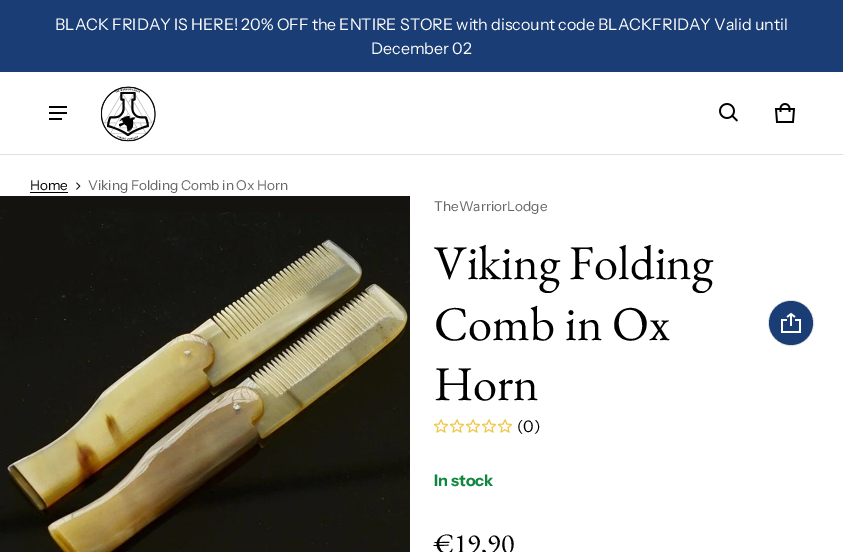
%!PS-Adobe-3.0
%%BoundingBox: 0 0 843 552
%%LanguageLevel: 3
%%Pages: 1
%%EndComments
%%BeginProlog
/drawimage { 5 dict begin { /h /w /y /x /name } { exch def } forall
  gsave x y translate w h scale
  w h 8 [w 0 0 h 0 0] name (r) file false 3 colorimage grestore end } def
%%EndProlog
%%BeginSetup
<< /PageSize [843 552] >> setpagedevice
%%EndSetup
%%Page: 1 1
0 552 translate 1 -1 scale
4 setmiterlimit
1 setgray
0 0 843 552 rectfill
0.098 0.239 0.455 setrgbcolor
0 0 843 72 rectfill
0.878 setgray
0 154 843 1 rectfill
0 setgray
49 106 18 2 rectfill
49 112 18 2 rectfill
49 118 13 2 rectfill
(images/1.raw) 100 86 56 56 drawimage
(images/2.raw) 719 103 19 19 drawimage
(images/3.raw) 774 103 22 20 drawimage
30 192 38 1 rectfill
(images/4.raw) 76 182 5 8 drawimage
(images/5.raw) 0 196 410 356 drawimage
0.878 setgray
newpath 791 323 22.5 0 360 arc closepath stroke
0.098 0.239 0.455 setrgbcolor
newpath 791 323 22 0 360 arc closepath fill
(images/6.raw) 781 312 20 21 drawimage
(images/7.raw) 434 419 14 14 drawimage
(images/7.raw) 450 419 14 14 drawimage
(images/7.raw) 466 419 14 14 drawimage
(images/7.raw) 482 419 14 14 drawimage
(images/7.raw) 498 419 14 14 drawimage
/InstrumentSans-Regular [16 0 0 -16 0 0] selectfont
1 setgray
55 30 moveto (BLACK FRIDAY IS HERE! 20% OFF the ENTIRE STORE with discount code BLACKFRIDAY Valid until) show
371 54 moveto (December 02) show
/InstrumentSans-Regular [13.6 0 0 -13.6 0 0] selectfont
0 setgray
30 190 moveto (Home) show
0.4 setgray
88 190 moveto (Viking Folding Comb in Ox Horn) show
434 211 moveto (TheWarriorLodge) show
/EBGaramond-Regular [48.5 0 0 -48.5 0 0] selectfont
0 setgray
434 279 moveto (Viking Folding) show
434 340 moveto (Comb in Ox) show
434 400 moveto (Horn) show
/InstrumentSans-Regular [16 0 0 -16 0 0] selectfont
517 432 moveto (\(0\)) show
/InstrumentSans-Bold [16 0 0 -16 0 0] selectfont
0.063 0.529 0.247 setrgbcolor
434 486 moveto (In stock) show
/EBGaramond-Regular [28 0 0 -28 0 0] selectfont
0 setgray
434 553 moveto (€19,90) show
showpage
%%EOF
